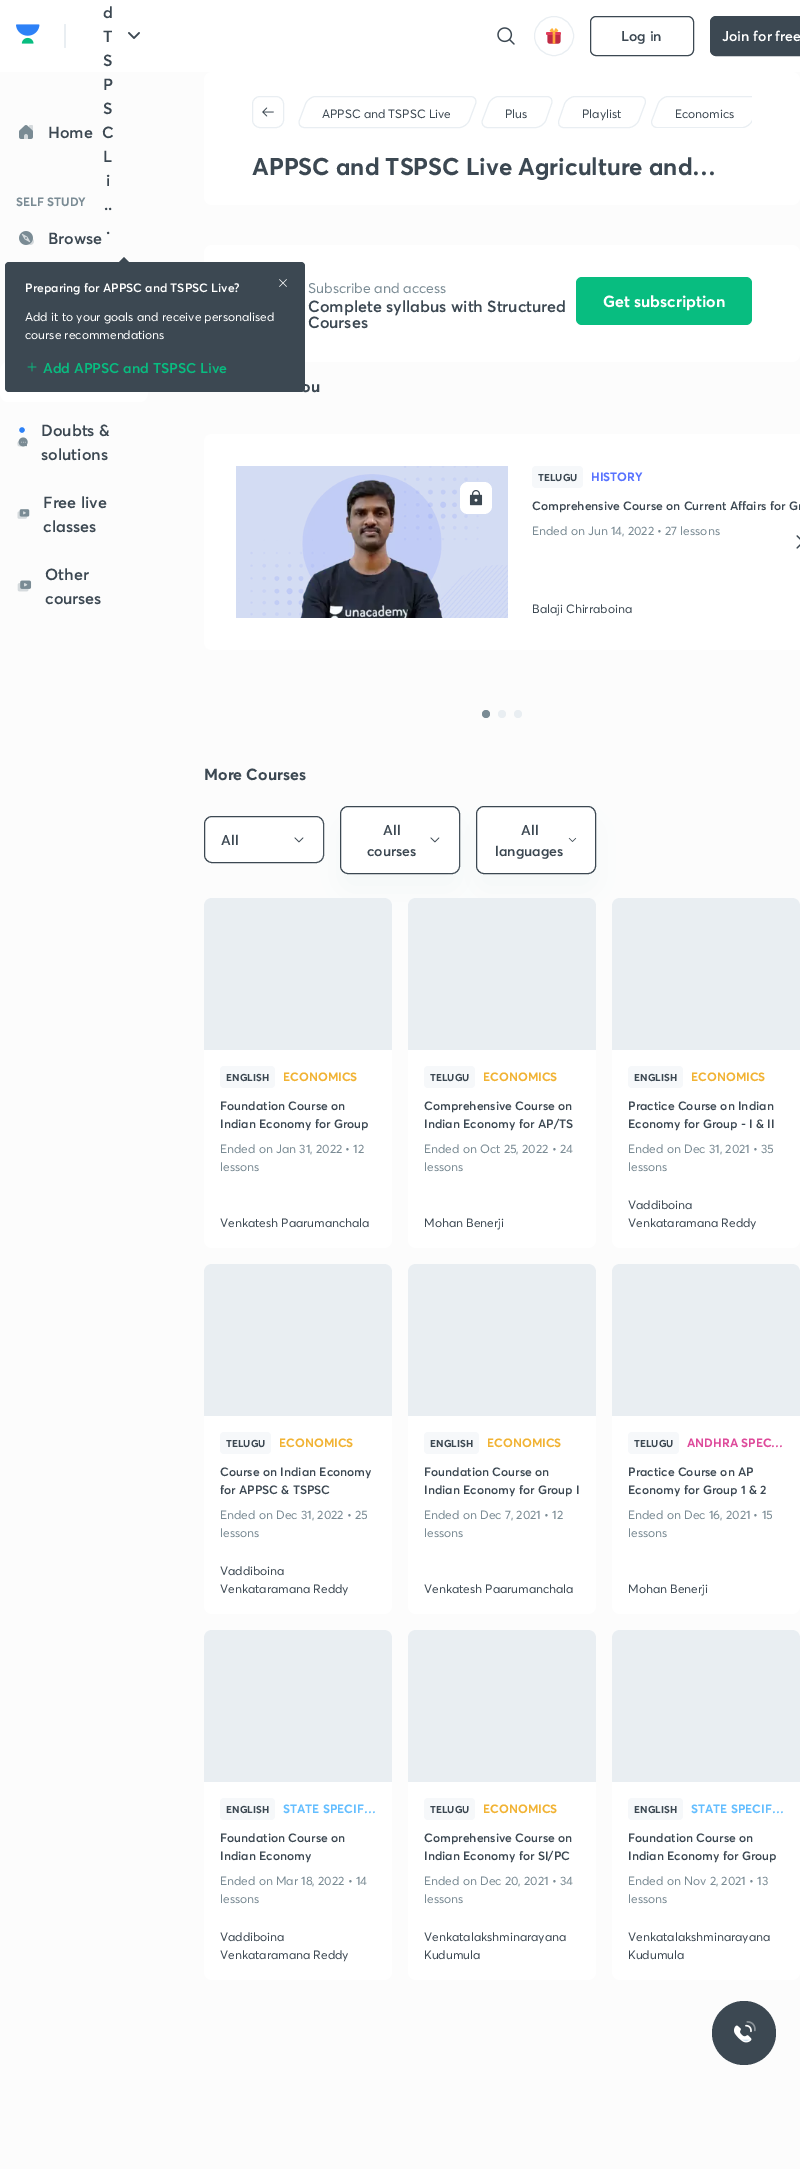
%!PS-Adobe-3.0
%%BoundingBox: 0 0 800 2169
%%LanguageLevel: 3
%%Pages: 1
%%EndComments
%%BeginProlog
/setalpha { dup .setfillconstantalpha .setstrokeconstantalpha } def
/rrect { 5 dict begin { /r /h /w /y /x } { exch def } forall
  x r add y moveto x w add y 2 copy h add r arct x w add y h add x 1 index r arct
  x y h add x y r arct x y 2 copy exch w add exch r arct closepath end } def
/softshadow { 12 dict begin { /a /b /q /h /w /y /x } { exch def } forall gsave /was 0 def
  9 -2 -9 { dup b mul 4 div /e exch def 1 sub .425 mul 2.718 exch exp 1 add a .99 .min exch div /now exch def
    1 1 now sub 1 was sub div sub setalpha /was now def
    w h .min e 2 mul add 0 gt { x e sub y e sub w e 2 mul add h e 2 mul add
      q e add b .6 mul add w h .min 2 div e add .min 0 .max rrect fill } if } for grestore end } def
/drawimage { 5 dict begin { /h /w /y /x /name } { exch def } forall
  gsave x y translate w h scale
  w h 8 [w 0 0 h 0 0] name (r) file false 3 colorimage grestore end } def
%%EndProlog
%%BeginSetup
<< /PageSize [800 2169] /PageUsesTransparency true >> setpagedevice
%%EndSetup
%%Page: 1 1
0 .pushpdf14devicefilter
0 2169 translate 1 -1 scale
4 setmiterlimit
0.988 setgray
0 0 800 2169 rectfill
1 setgray
0 0 800 72 rectfill
(images/1.raw) 16 24 24 20 drawimage
0.914 0.933 0.949 setrgbcolor
64 24 2 24 1 rrect fill
(images/2.raw) 128 32 12 7 drawimage
(images/3.raw) 497 27 18 18 drawimage
newpath 554 36 19.5 0 360 arc closepath stroke
(images/4.raw) 546 28 15 16 drawimage
0.235 0.282 0.322 setrgbcolor
590.5 16.5 103 39 5.5 rrect stroke
710.5 16.5 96 39 5.5 rrect gsave fill grestore
stroke
(images/5.raw) 19 125 14 14 drawimage
(images/6.raw) 19 231 15 14 drawimage
0.176 0.506 0.969 setrgbcolor
newpath 22 430 3.5 0 360 arc closepath gsave fill grestore
1 setgray
stroke
(images/7.raw) 17 437 11 10 drawimage
(images/8.raw) 17 509 13 10 drawimage
(images/9.raw) 17 580 15 12 drawimage
newpath 8 362 moveto 140 362 lineto 144 362 148 366 148 371 curveto 148 393 lineto 148 398 144 402 140 402 curveto 8 402 lineto 4 402 0 398 0 393 curveto 0 371 lineto 0 366 4 362 8 362 curveto closepath fill
204 72 596 133 8 rrect fill
0.914 0.933 0.949 setrgbcolor
252.5 96.5 31 31 7.5 rrect stroke
(images/10.raw) 262 107 12 10 drawimage
newpath 315.5 96.5 moveto 470.5 96.5 lineto 475 96.5 477 100 475.5 104 curveto 469.5 120 lineto 468 124 463.5 127.5 459.5 127.5 curveto 304.5 127.5 lineto 300 127.5 298 124 299.5 120 curveto 305.5 104 lineto 307 100 311.5 96.5 315.5 96.5 curveto closepath stroke
newpath 498.5 96.5 moveto 547 96.5 lineto 551 96.5 553 100 551.5 104 curveto 546 120 lineto 544.5 124 540 127.5 535.5 127.5 curveto 487.5 127.5 lineto 483.5 127.5 481 124 482.5 120 curveto 488.5 104 lineto 490 100 494.5 96.5 498.5 96.5 curveto closepath stroke
newpath 575 96.5 moveto 640 96.5 lineto 644.5 96.5 646.5 100 645 104 curveto 639 120 lineto 637.5 124 633 127.5 629 127.5 curveto 563.5 127.5 lineto 559.5 127.5 557.5 124 559 120 curveto 564.5 104 lineto 566 100 571 96.5 575 96.5 curveto closepath stroke
gsave
252 96 500 32 rectclip
newpath 668 96.5 moveto 754 96.5 lineto 758 96.5 760 100 758.5 104 curveto 752.5 120 lineto 751 124 746.5 127.5 742.5 127.5 curveto 657 127.5 lineto 653 127.5 650.5 124 652 120 curveto 658 104 lineto 659.5 100 664 96.5 668 96.5 curveto closepath stroke
grestore
1 setgray
204 245 596 117 8 rrect fill
0.031 0.741 0.502 setrgbcolor
576 277 176 48 6 rrect fill
1 setgray
newpath 212 434 moveto 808 434 lineto 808 650 lineto 212 650 lineto 207.5 650 204 646.5 204 642 curveto 204 442 lineto 204 437.5 207.5 434 212 434 curveto closepath fill
0.914 0.933 0.949 setrgbcolor
236 466 272 152 rectfill
(images/11.raw) 236 466 272 152 drawimage
1 setgray
460 482 32 32 8 rrect fill
(images/12.raw) 469 490 14 16 drawimage
0.965 0.973 0.98 setrgbcolor
532 466 51 22 4 rrect fill
(images/13.raw) 796 535 4 14 drawimage
0.478 0.545 0.58 setrgbcolor
newpath 486 714 4 0 360 arc closepath fill
0.914 0.933 0.949 setrgbcolor
newpath 502 714 4 0 360 arc closepath fill
newpath 518 714 4 0 360 arc closepath fill
1 setgray
204.5 816.5 119 46 7.5 rrect gsave fill grestore
0.235 0.282 0.322 setrgbcolor
stroke
0.914 0.933 0.949 setrgbcolor
340 822 120 68 8 16 0.4 softshadow
(images/14.raw) 294 837 10 6 drawimage
1 setgray
340.5 806.5 119 67 7.5 rrect gsave fill grestore
0.235 0.282 0.322 setrgbcolor
stroke
0.914 0.933 0.949 setrgbcolor
476 822 120 68 8 16 0.4 softshadow
(images/15.raw) 430 837 10 6 drawimage
1 setgray
476.5 806.5 119 67 7.5 rrect gsave fill grestore
0.235 0.282 0.322 setrgbcolor
stroke
(images/16.raw) 568 837 9 5 drawimage
1 setgray
204 898 188 350 8 rrect fill
0.914 0.933 0.949 setrgbcolor
newpath 212 898 moveto 384 898 lineto 388.5 898 392 901.5 392 906 curveto 392 1050 lineto 204 1050 lineto 204 906 lineto 204 901.5 207.5 898 212 898 curveto closepath fill
0.965 0.973 0.98 setrgbcolor
220 1066 55 22 4 rrect fill
1 setgray
408 898 188 350 8 rrect fill
0.914 0.933 0.949 setrgbcolor
newpath 416 898 moveto 588 898 lineto 592.5 898 596 901.5 596 906 curveto 596 1050 lineto 408 1050 lineto 408 906 lineto 408 901.5 411.5 898 416 898 curveto closepath fill
0.965 0.973 0.98 setrgbcolor
424 1066 51 22 4 rrect fill
1 setgray
612 898 188 350 8 rrect fill
0.914 0.933 0.949 setrgbcolor
newpath 620 898 moveto 792 898 lineto 796.5 898 800 901.5 800 906 curveto 800 1050 lineto 612 1050 lineto 612 906 lineto 612 901.5 615.5 898 620 898 curveto closepath fill
0.965 0.973 0.98 setrgbcolor
628 1066 55 22 4 rrect fill
1 setgray
204 1264 188 350 8 rrect fill
0.914 0.933 0.949 setrgbcolor
newpath 212 1264 moveto 384 1264 lineto 388.5 1264 392 1267.5 392 1272 curveto 392 1416 lineto 204 1416 lineto 204 1272 lineto 204 1267.5 207.5 1264 212 1264 curveto closepath fill
0.965 0.973 0.98 setrgbcolor
220 1432 51 22 4 rrect fill
1 setgray
408 1264 188 350 8 rrect fill
0.914 0.933 0.949 setrgbcolor
newpath 416 1264 moveto 588 1264 lineto 592.5 1264 596 1267.5 596 1272 curveto 596 1416 lineto 408 1416 lineto 408 1272 lineto 408 1267.5 411.5 1264 416 1264 curveto closepath fill
0.965 0.973 0.98 setrgbcolor
424 1432 55 22 4 rrect fill
1 setgray
612 1264 188 350 8 rrect fill
0.914 0.933 0.949 setrgbcolor
newpath 620 1264 moveto 792 1264 lineto 796.5 1264 800 1267.5 800 1272 curveto 800 1416 lineto 612 1416 lineto 612 1272 lineto 612 1267.5 615.5 1264 620 1264 curveto closepath fill
0.965 0.973 0.98 setrgbcolor
628 1432 51 22 4 rrect fill
1 setgray
204 1630 188 350 8 rrect fill
0.914 0.933 0.949 setrgbcolor
newpath 212 1630 moveto 384 1630 lineto 388.5 1630 392 1633.5 392 1638 curveto 392 1782 lineto 204 1782 lineto 204 1638 lineto 204 1633.5 207.5 1630 212 1630 curveto closepath fill
0.965 0.973 0.98 setrgbcolor
220 1798 55 22 4 rrect fill
1 setgray
408 1630 188 350 8 rrect fill
0.914 0.933 0.949 setrgbcolor
newpath 416 1630 moveto 588 1630 lineto 592.5 1630 596 1633.5 596 1638 curveto 596 1782 lineto 408 1782 lineto 408 1638 lineto 408 1633.5 411.5 1630 416 1630 curveto closepath fill
0.965 0.973 0.98 setrgbcolor
424 1798 51 22 4 rrect fill
1 setgray
612 1630 188 350 8 rrect fill
0.914 0.933 0.949 setrgbcolor
newpath 620 1630 moveto 792 1630 lineto 796.5 1630 800 1633.5 800 1638 curveto 800 1782 lineto 612 1782 lineto 612 1638 lineto 612 1633.5 615.5 1630 620 1630 curveto closepath fill
0.965 0.973 0.98 setrgbcolor
628 1798 55 22 4 rrect fill
0.235 0.282 0.322 setrgbcolor
newpath 744 2033 32 0 360 arc closepath fill
(images/17.raw) 734 2021 22 22 drawimage
5 262 300 130 4 rrect fill
gsave
119 255 10 7 rectclip
newpath 124 257 moveto 131 264 lineto 126 269 lineto 119 262 lineto closepath fill
grestore
(images/18.raw) 279 279 8 8 drawimage
(images/19.raw) 27 362 10 10 drawimage
/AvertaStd-SemiBold [16 0 0 -16 0 0] selectfont
103 18 moveto (d) show
103 42 moveto (T) show
103 66 moveto (S) show
103 90 moveto (P) show
103 114 moveto (S) show
102 138 moveto (C) show
103 162 moveto (L) show
106 186 moveto (i) show
104 210 moveto (..) show
106 234 moveto (.) show
/AvertaStd-SemiBold [14 0 0 -14 0 0] selectfont
621 41 moveto (Log in) show
1 setgray
722 41 moveto (Join for free) show
/AvertaStd-SemiBold [16 0 0 -16 0 0] selectfont
0.235 0.282 0.322 setrgbcolor
48 138 moveto (Home) show
/AvertaStd-Bold [12 0 0 -12 0 0] selectfont
0.478 0.545 0.58 setrgbcolor
16 206 moveto (SELF STUDY) show
/AvertaStd-SemiBold [16 0 0 -16 0 0] selectfont
0.235 0.282 0.322 setrgbcolor
48 244 moveto (Browse) show
41 436 moveto (Doubts &) show
41 460 moveto (solutions) show
43 508 moveto (Free live) show
43 532 moveto (classes) show
45 580 moveto (Other) show
45 604 moveto (courses) show
/AvertaStd-Regular [12 0 0 -12 0 0] selectfont
322 118 moveto (APPSC and TSPSC Live) show
505 118 moveto (Plus) show
582 118 moveto (Playlist) show
675 118 moveto (Economics) show
/AvertaStd-Bold [24 0 0 -24 0 0] selectfont
252 175 moveto (APPSC and TSPSC Live Agriculture and…) show
/AvertaStd-Regular [14 0 0 -14 0 0] selectfont
0.478 0.545 0.58 setrgbcolor
308 293 moveto (Subscribe and access) show
/AvertaStd-SemiBold [16 0 0 -16 0 0] selectfont
0.235 0.282 0.322 setrgbcolor
308 312 moveto (Complete syllabus with Structured) show
308 328 moveto (Courses) show
/AvertaStd-Bold [16 0 0 -16 0 0] selectfont
1 setgray
603 307 moveto (Get subscription) show
0.235 0.282 0.322 setrgbcolor
301 392 moveto (ou) show
/AvertaStd-Bold [10 0 0 -10 0 0] selectfont
538 481 moveto (TELUGU) show
/AvertaStd-Bold [12 0 0 -12 0 0] selectfont
0.345 0.451 1 setrgbcolor
591 481 moveto (HISTORY) show
/AvertaStd-SemiBold [12 0 0 -12 0 0] selectfont
0.235 0.282 0.322 setrgbcolor
532 510 moveto (Comprehensive Course on Current Affairs for Gr) show
/AvertaStd-Regular [12 0 0 -12 0 0] selectfont
0.478 0.545 0.58 setrgbcolor
532 535 moveto (Ended on Jun 14, 2022 • 27 lessons) show
0.235 0.282 0.322 setrgbcolor
532 613 moveto (Balaji Chirraboina) show
/AvertaStd-Bold [16 0 0 -16 0 0] selectfont
204 780 moveto (More Courses) show
/AvertaStd-SemiBold [14 0 0 -14 0 0] selectfont
221 845 moveto (All) show
383 835 moveto (All) show
367 856 moveto (courses) show
521 835 moveto (All) show
495 856 moveto (languages) show
/AvertaStd-Bold [10 0 0 -10 0 0] selectfont
226 1081 moveto (ENGLISH) show
gsave
283 1070 93 12 4 rrect clip newpath
/AvertaStd-Bold [12 0 0 -12 0 0] selectfont
0.945 0.702 0.204 setrgbcolor
283 1081 moveto (ECONOMICS) show
grestore
/AvertaStd-SemiBold [12 0 0 -12 0 0] selectfont
220 1110 moveto (Foundation Course on) show
220 1128 moveto (Indian Economy for Group) show
/AvertaStd-Regular [12 0 0 -12 0 0] selectfont
0.478 0.545 0.58 setrgbcolor
220 1153 moveto (Ended on Jan 31, 2022 • 12) show
220 1171 moveto (lessons) show
0.235 0.282 0.322 setrgbcolor
220 1227 moveto (Venkatesh Paarumanchala) show
/AvertaStd-Bold [10 0 0 -10 0 0] selectfont
430 1081 moveto (TELUGU) show
/AvertaStd-Bold [12 0 0 -12 0 0] selectfont
0.945 0.702 0.204 setrgbcolor
483 1081 moveto (ECONOMICS) show
/AvertaStd-SemiBold [12 0 0 -12 0 0] selectfont
0.235 0.282 0.322 setrgbcolor
424 1110 moveto (Comprehensive Course on) show
424 1128 moveto (Indian Economy for AP/TS) show
/AvertaStd-Regular [12 0 0 -12 0 0] selectfont
0.478 0.545 0.58 setrgbcolor
424 1153 moveto (Ended on Oct 25, 2022 • 24) show
424 1171 moveto (lessons) show
0.235 0.282 0.322 setrgbcolor
424 1227 moveto (Mohan Benerji) show
/AvertaStd-Bold [10 0 0 -10 0 0] selectfont
634 1081 moveto (ENGLISH) show
gsave
691 1070 93 12 4 rrect clip newpath
/AvertaStd-Bold [12 0 0 -12 0 0] selectfont
0.945 0.702 0.204 setrgbcolor
691 1081 moveto (ECONOMICS) show
grestore
/AvertaStd-SemiBold [12 0 0 -12 0 0] selectfont
628 1110 moveto (Practice Course on Indian) show
628 1128 moveto (Economy for Group - I & II) show
/AvertaStd-Regular [12 0 0 -12 0 0] selectfont
0.478 0.545 0.58 setrgbcolor
628 1153 moveto (Ended on Dec 31, 2021 • 35) show
628 1171 moveto (lessons) show
0.235 0.282 0.322 setrgbcolor
628 1209 moveto (Vaddiboina) show
628 1227 moveto (Venkataramana Reddy) show
/AvertaStd-Bold [10 0 0 -10 0 0] selectfont
226 1447 moveto (TELUGU) show
/AvertaStd-Bold [12 0 0 -12 0 0] selectfont
0.945 0.702 0.204 setrgbcolor
279 1447 moveto (ECONOMICS) show
/AvertaStd-SemiBold [12 0 0 -12 0 0] selectfont
0.235 0.282 0.322 setrgbcolor
220 1476 moveto (Course on Indian Economy) show
220 1494 moveto (for APPSC & TSPSC) show
/AvertaStd-Regular [12 0 0 -12 0 0] selectfont
0.478 0.545 0.58 setrgbcolor
220 1519 moveto (Ended on Dec 31, 2022 • 25) show
220 1537 moveto (lessons) show
0.235 0.282 0.322 setrgbcolor
220 1575 moveto (Vaddiboina) show
220 1593 moveto (Venkataramana Reddy) show
/AvertaStd-Bold [10 0 0 -10 0 0] selectfont
430 1447 moveto (ENGLISH) show
gsave
487 1436 93 12 4 rrect clip newpath
/AvertaStd-Bold [12 0 0 -12 0 0] selectfont
0.945 0.702 0.204 setrgbcolor
487 1447 moveto (ECONOMICS) show
grestore
/AvertaStd-SemiBold [12 0 0 -12 0 0] selectfont
424 1476 moveto (Foundation Course on) show
424 1494 moveto (Indian Economy for Group I) show
/AvertaStd-Regular [12 0 0 -12 0 0] selectfont
0.478 0.545 0.58 setrgbcolor
424 1519 moveto (Ended on Dec 7, 2021 • 12) show
424 1537 moveto (lessons) show
0.235 0.282 0.322 setrgbcolor
424 1593 moveto (Venkatesh Paarumanchala) show
/AvertaStd-Bold [10 0 0 -10 0 0] selectfont
634 1447 moveto (TELUGU) show
/AvertaStd-Bold [12 0 0 -12 0 0] selectfont
0.871 0.294 0.608 setrgbcolor
687 1447 moveto (ANDHRA SPEC…) show
/AvertaStd-SemiBold [12 0 0 -12 0 0] selectfont
0.235 0.282 0.322 setrgbcolor
628 1476 moveto (Practice Course on AP) show
628 1494 moveto (Economy for Group 1 & 2) show
/AvertaStd-Regular [12 0 0 -12 0 0] selectfont
0.478 0.545 0.58 setrgbcolor
628 1519 moveto (Ended on Dec 16, 2021 • 15) show
628 1537 moveto (lessons) show
0.235 0.282 0.322 setrgbcolor
628 1593 moveto (Mohan Benerji) show
/AvertaStd-Bold [10 0 0 -10 0 0] selectfont
226 1813 moveto (ENGLISH) show
/AvertaStd-Bold [12 0 0 -12 0 0] selectfont
0.392 0.745 1 setrgbcolor
283 1813 moveto (STATE SPECIF…) show
/AvertaStd-SemiBold [12 0 0 -12 0 0] selectfont
0.235 0.282 0.322 setrgbcolor
220 1842 moveto (Foundation Course on) show
220 1860 moveto (Indian Economy) show
/AvertaStd-Regular [12 0 0 -12 0 0] selectfont
0.478 0.545 0.58 setrgbcolor
220 1885 moveto (Ended on Mar 18, 2022 • 14) show
220 1903 moveto (lessons) show
0.235 0.282 0.322 setrgbcolor
220 1941 moveto (Vaddiboina) show
220 1959 moveto (Venkataramana Reddy) show
/AvertaStd-Bold [10 0 0 -10 0 0] selectfont
430 1813 moveto (TELUGU) show
/AvertaStd-Bold [12 0 0 -12 0 0] selectfont
0.945 0.702 0.204 setrgbcolor
483 1813 moveto (ECONOMICS) show
/AvertaStd-SemiBold [12 0 0 -12 0 0] selectfont
0.235 0.282 0.322 setrgbcolor
424 1842 moveto (Comprehensive Course on) show
424 1860 moveto (Indian Economy for SI/PC) show
/AvertaStd-Regular [12 0 0 -12 0 0] selectfont
0.478 0.545 0.58 setrgbcolor
424 1885 moveto (Ended on Dec 20, 2021 • 34) show
424 1903 moveto (lessons) show
0.235 0.282 0.322 setrgbcolor
424 1941 moveto (Venkatalakshminarayana) show
424 1959 moveto (Kudumula) show
/AvertaStd-Bold [10 0 0 -10 0 0] selectfont
634 1813 moveto (ENGLISH) show
/AvertaStd-Bold [12 0 0 -12 0 0] selectfont
0.392 0.745 1 setrgbcolor
691 1813 moveto (STATE SPECIF…) show
/AvertaStd-SemiBold [12 0 0 -12 0 0] selectfont
0.235 0.282 0.322 setrgbcolor
628 1842 moveto (Foundation Course on) show
628 1860 moveto (Indian Economy for Group) show
/AvertaStd-Regular [12 0 0 -12 0 0] selectfont
0.478 0.545 0.58 setrgbcolor
628 1885 moveto (Ended on Nov 2, 2021 • 13) show
628 1903 moveto (lessons) show
0.235 0.282 0.322 setrgbcolor
628 1941 moveto (Venkatalakshminarayana) show
628 1959 moveto (Kudumula) show
/AvertaStd-SemiBold [12 0 0 -12 0 0] selectfont
1 setgray
25 292 moveto (Preparing for APPSC and TSPSC Live?) show
/AvertaStd-Regular [12 0 0 -12 0 0] selectfont
25 321 moveto (Add it to your goals and receive personalised) show
25 339 moveto (course recommendations) show
/AvertaStd-SemiBold [14 0 0 -14 0 0] selectfont
0.031 0.741 0.502 setrgbcolor
43 373 moveto (Add APPSC and TSPSC Live) show
.poppdf14devicefilter showpage
%%EOF
